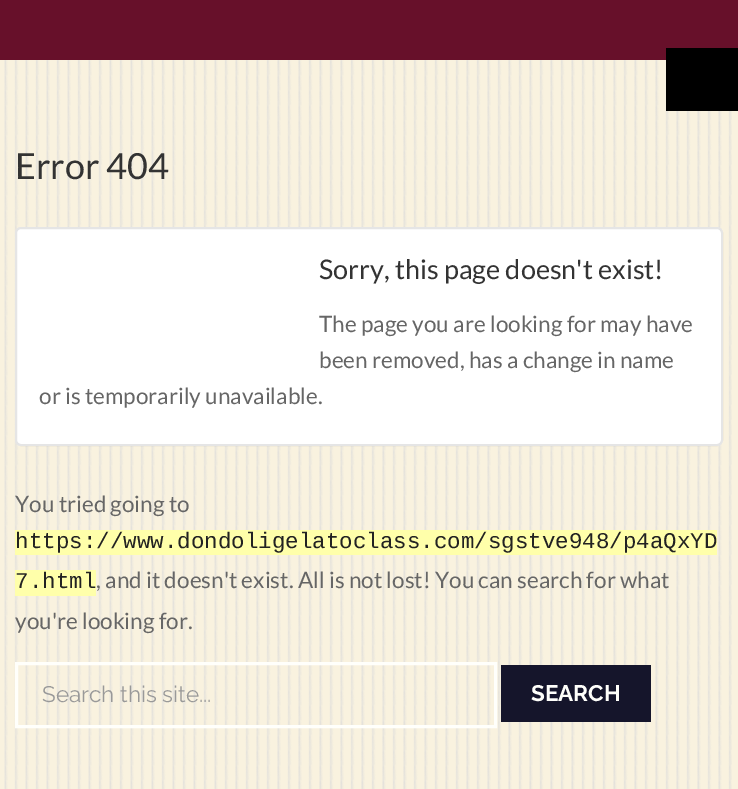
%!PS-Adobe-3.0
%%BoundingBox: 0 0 738 789
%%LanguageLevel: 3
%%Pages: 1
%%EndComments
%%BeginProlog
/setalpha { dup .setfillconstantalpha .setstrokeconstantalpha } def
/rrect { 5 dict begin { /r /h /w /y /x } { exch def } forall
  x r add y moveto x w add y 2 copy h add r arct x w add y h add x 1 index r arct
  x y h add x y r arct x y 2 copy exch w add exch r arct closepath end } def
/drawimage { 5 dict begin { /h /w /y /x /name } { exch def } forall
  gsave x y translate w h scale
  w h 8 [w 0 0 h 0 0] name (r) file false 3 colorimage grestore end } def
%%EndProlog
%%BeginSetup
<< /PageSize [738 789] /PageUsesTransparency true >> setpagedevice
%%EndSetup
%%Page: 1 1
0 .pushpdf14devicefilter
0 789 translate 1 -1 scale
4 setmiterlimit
0.976 0.949 0.875 setrgbcolor
0 0 738 789 rectfill
(images/1.raw) 4 60 728 729 drawimage
0.404 0.063 0.165 setrgbcolor
0 0 738 60 rectfill
0 setgray
666 48 72 63 rectfill
1 setgray
15 227 708 219 6 rrect fill
0.1 setalpha
0 setgray
2 setlinewidth
16 228 706 217 5 rrect stroke
1 setalpha
1 1 0.667 setrgbcolor
15 530 702 25 rectfill
15 570 81 26 rectfill
1 1 0.984 setrgbcolor
3 setlinewidth
16.5 663.5 479 63 rectstroke
0.082 0.082 0.169 setrgbcolor
501 665 150 57 rectfill
/Lato-Regular [36 0 0 -36 0 0] selectfont
0.2 setgray
15 179 moveto (Error 404) show
/Lato-Regular [27 0 0 -27 0 0] selectfont
319 279 moveto (Sorry, this page doesn't exist!) show
/Lato-Regular [22.5 0 0 -22.5 0 0] selectfont
0.4 setgray
319 332 moveto (The page you are looking for may have) show
319 368 moveto (been removed, has a change in name) show
39 404 moveto (or is temporarily unavailable.) show
15 512 moveto (You tried going to) show
/LiberationMono-Regular [22.5 0 0 -22.5 0 0] selectfont
0.133 setgray
15 548 moveto (https://www.dondoligelatoclass.com/sgstve948/p4aQxYD) show
15 588 moveto (7.html) show
/Lato-Regular [22.5 0 0 -22.5 0 0] selectfont
0.4 setgray
96 588 moveto (, and it doesn't exist. All is not lost! You can search for what) show
15 629 moveto (you're looking for.) show
/Raleway-Regular [22.5 0 0 -22.5 0 0] selectfont
0.6 setgray
42 702 moveto (Search this site...) show
/Raleway-Bold [22.5 0 0 -22.5 0 0] selectfont
1 1 0.984 setrgbcolor
531 701 moveto (SEARCH) show
.poppdf14devicefilter showpage
%%EOF
